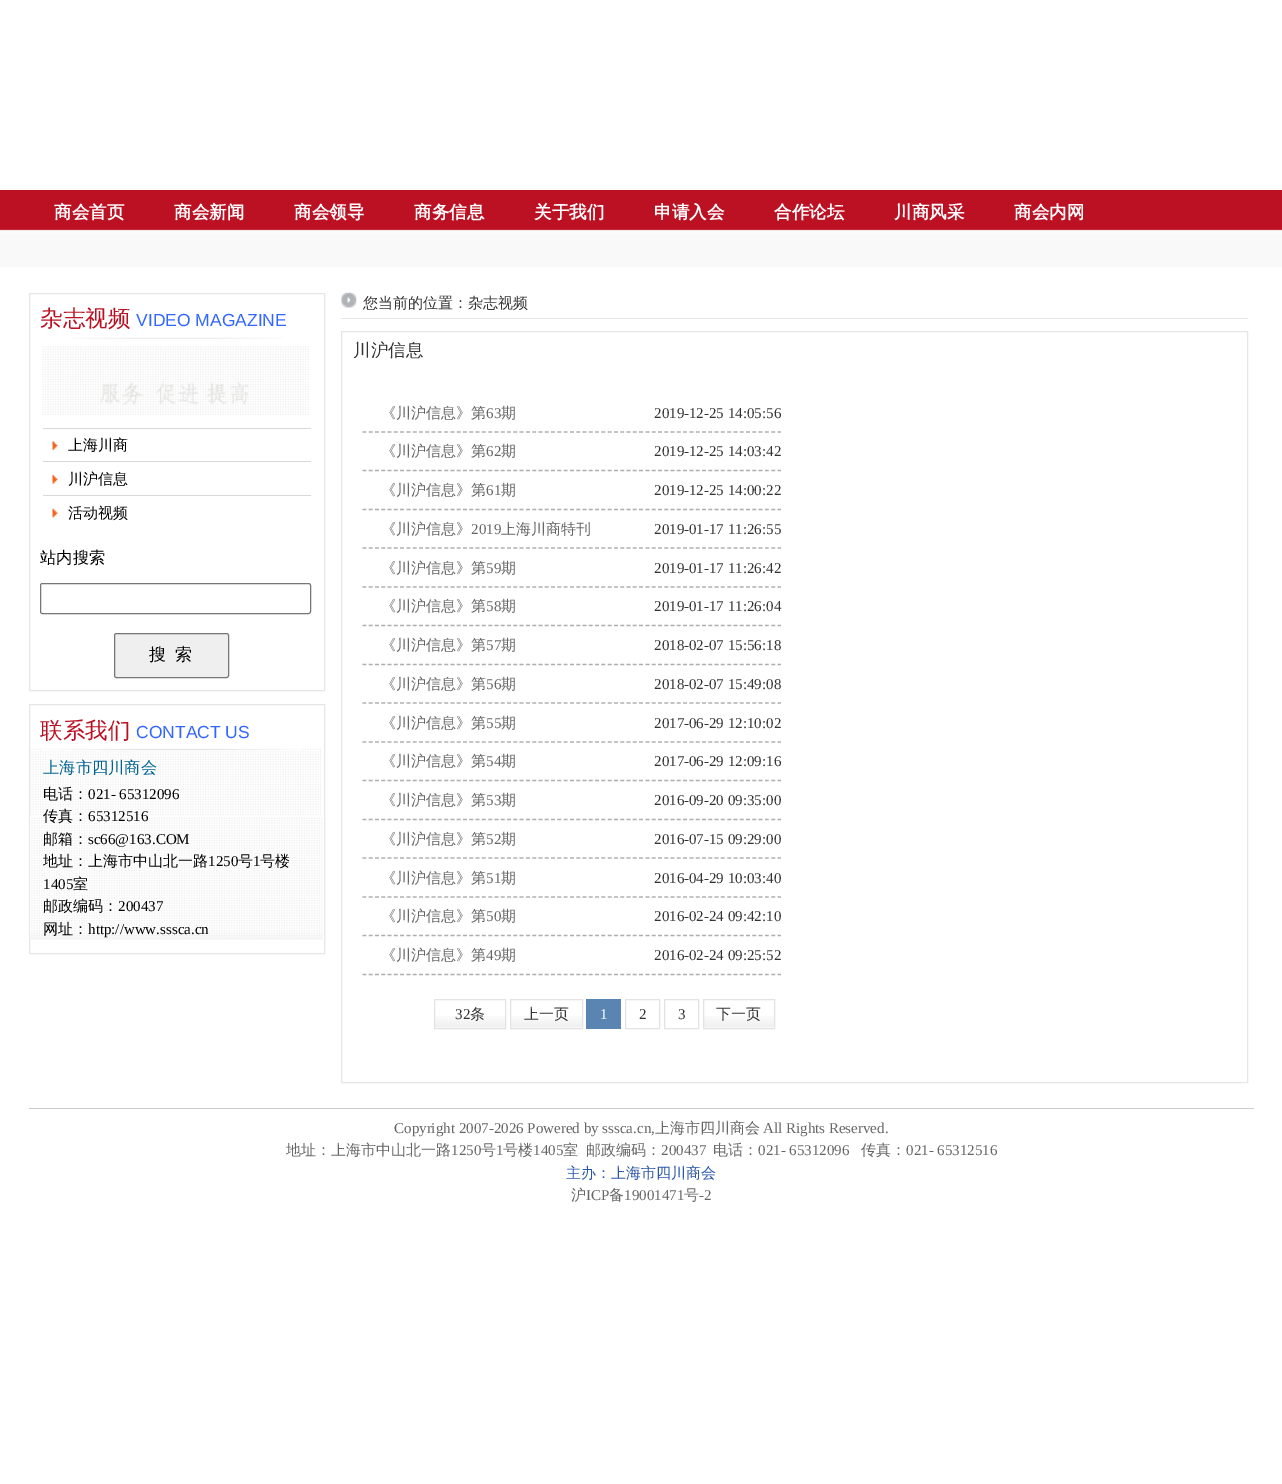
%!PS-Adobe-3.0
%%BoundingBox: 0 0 1282 1484
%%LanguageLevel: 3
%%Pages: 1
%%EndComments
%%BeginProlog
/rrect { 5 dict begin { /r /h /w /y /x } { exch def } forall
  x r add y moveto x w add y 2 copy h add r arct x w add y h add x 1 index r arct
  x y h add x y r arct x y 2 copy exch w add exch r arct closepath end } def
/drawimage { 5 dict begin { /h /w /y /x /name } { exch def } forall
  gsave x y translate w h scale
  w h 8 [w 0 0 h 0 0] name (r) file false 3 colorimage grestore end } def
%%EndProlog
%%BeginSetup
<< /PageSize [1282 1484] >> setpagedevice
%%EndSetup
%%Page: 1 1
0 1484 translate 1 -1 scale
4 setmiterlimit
1 setgray
0 0 1282 1484 rectfill
(images/1.raw) 0 190 1282 77 drawimage
0.902 setgray
29.5 293.5 295 397 rectstroke
(images/2.raw) 71 337 211 2 drawimage
(images/3.raw) 42 346 267 69 drawimage
0.851 setgray
43 428 268 1 rectfill
(images/4.raw) 52 441 6 9 drawimage
43 461 268 1 rectfill
(images/5.raw) 52 475 6 9 drawimage
43 495 268 1 rectfill
(images/6.raw) 52 508 6 10 drawimage
0.463 setgray
40.5 583.5 270 30 2 rrect stroke
0.937 setgray
114.5 633.5 114 44 2 rrect gsave fill grestore
0.463 setgray
stroke
0.902 setgray
29.5 704.5 295 249 rectstroke
(images/8.raw) 30 748 293 192 drawimage
(images/7.raw) 42 749 259 1 drawimage
(images/9.raw) 341 292 16 16 drawimage
341 318 907 1 rectfill
341.5 331.5 906 751 rectstroke
0.686 setgray
1.2 setlinewidth
[3.75 2.54] 0 setdash
newpath 362.5 432 moveto 781 432 lineto stroke
newpath 362.5 470.5 moveto 781 470.5 lineto stroke
newpath 362.5 509.5 moveto 781 509.5 lineto stroke
newpath 362.5 548 moveto 781 548 lineto stroke
newpath 362.5 587 moveto 781 587 lineto stroke
newpath 362.5 625.5 moveto 781 625.5 lineto stroke
newpath 362.5 664.5 moveto 781 664.5 lineto stroke
newpath 362.5 703 moveto 781 703 lineto stroke
newpath 362.5 742 moveto 781 742 lineto stroke
newpath 362.5 780.5 moveto 781 780.5 lineto stroke
newpath 362.5 819.5 moveto 781 819.5 lineto stroke
newpath 362.5 858 moveto 781 858 lineto stroke
newpath 362.5 897 moveto 781 897 lineto stroke
newpath 362.5 935.5 moveto 781 935.5 lineto stroke
newpath 362.5 974.5 moveto 781 974.5 lineto stroke
(images/10.raw) 435 1016 72 12 drawimage
0.89 setgray
1 setlinewidth
[] 0 setdash
434.5 999.5 71 29 rectstroke
(images/11.raw) 511 1016 71 12 drawimage
510.5 999.5 72 29 rectstroke
0.353 0.522 0.698 setrgbcolor
586 999 35 30 rectfill
0.89 setgray
625.5 999.5 34 29 rectstroke
664.5 999.5 34 29 rectstroke
(images/12.raw) 704 1016 70 12 drawimage
703.5 999.5 71 29 rectstroke
0.8 setgray
29 1108 1225 1 rectfill
/WenQuanYiZenHei-Bold [17.5 0 0 -17.5 0 0] selectfont
1 setgray
54 218 moveto (商会首页) show
174 218 moveto (商会新闻) show
294 218 moveto (商会领导) show
414 218 moveto (商务信息) show
534 218 moveto (关于我们) show
654 218 moveto (申请入会) show
774 218 moveto (合作论坛) show
894 218 moveto (川商风采) show
1014 218 moveto (商会内网) show
/WenQuanYiZenHei-Medium [22.5 0 0 -22.5 0 0] selectfont
0.729 0.063 0.129 setrgbcolor
40 326 moveto (杂志视频) show
/LiberationSans-Regular [17.5 0 0 -17.5 0 0] selectfont
0.2 0.4 1 setrgbcolor
136 326 moveto (VIDEO MAGAZINE) show
/WenQuanYiZenHei-Medium [15 0 0 -15 0 0] selectfont
0 setgray
68 450 moveto (上海川商) show
68 484 moveto (川沪信息) show
68 518 moveto (活动视频) show
/WenQuanYiZenHei-Medium [16.25 0 0 -16.25 0 0] selectfont
40 563 moveto (站内搜索) show
/WenQuanYiZenHei-Medium [17 0 0 -17 0 0] selectfont
149 660 moveto (搜) show
175 660 moveto (索) show
/WenQuanYiZenHei-Medium [22.5 0 0 -22.5 0 0] selectfont
0.729 0.063 0.129 setrgbcolor
40 738 moveto (联系我们) show
/LiberationSans-Regular [17.5 0 0 -17.5 0 0] selectfont
0.2 0.4 1 setrgbcolor
136 738 moveto (CONTACT US) show
/WenQuanYiZenHei-Medium [16.25 0 0 -16.25 0 0] selectfont
0 0.388 0.576 setrgbcolor
43 773 moveto (上海市四川商会) show
/WenQuanYiZenHei-Medium [15 0 0 -15 0 0] selectfont
0 setgray
43 799 moveto (电话：) show
/LiberationSerif-Regular [15 0 0 -15 0 0] selectfont
88 799 moveto (021- 65312096) show
/WenQuanYiZenHei-Medium [15 0 0 -15 0 0] selectfont
43 821 moveto (传真：) show
/LiberationSerif-Regular [15 0 0 -15 0 0] selectfont
88 821 moveto (65312516) show
/WenQuanYiZenHei-Medium [15 0 0 -15 0 0] selectfont
43 844 moveto (邮箱：) show
/LiberationSerif-Regular [15 0 0 -15 0 0] selectfont
88 844 moveto (sc66@163.COM) show
/WenQuanYiZenHei-Medium [15 0 0 -15 0 0] selectfont
43 866 moveto (地址：上海市中山北一路) show
/LiberationSerif-Regular [15 0 0 -15 0 0] selectfont
208 866 moveto (1250) show
/WenQuanYiZenHei-Medium [15 0 0 -15 0 0] selectfont
238 866 moveto (号) show
/LiberationSerif-Regular [15 0 0 -15 0 0] selectfont
253 866 moveto (1) show
/WenQuanYiZenHei-Medium [15 0 0 -15 0 0] selectfont
260 866 moveto (号楼) show
/LiberationSerif-Regular [15 0 0 -15 0 0] selectfont
43 889 moveto (1405) show
/WenQuanYiZenHei-Medium [15 0 0 -15 0 0] selectfont
73 889 moveto (室) show
43 911 moveto (邮政编码：) show
/LiberationSerif-Regular [15 0 0 -15 0 0] selectfont
118 911 moveto (200437) show
/WenQuanYiZenHei-Medium [15 0 0 -15 0 0] selectfont
43 934 moveto (网址：) show
/LiberationSerif-Regular [15 0 0 -15 0 0] selectfont
88 934 moveto (http://www.sssca.cn) show
/WenQuanYiZenHei-Medium [15 0 0 -15 0 0] selectfont
0.2 setgray
363 308 moveto (您当前的位置：杂志视频) show
/WenQuanYiZenHei-Medium [17.5 0 0 -17.5 0 0] selectfont
353 356 moveto (川沪信息) show
/WenQuanYiZenHei-Medium [15 0 0 -15 0 0] selectfont
0.4 setgray
381 418 moveto (《川沪信息》第) show
/LiberationSerif-Regular [15 0 0 -15 0 0] selectfont
486 418 moveto (63) show
/WenQuanYiZenHei-Medium [15 0 0 -15 0 0] selectfont
501 418 moveto (期) show
/LiberationSerif-Regular [15 0 0 -15 0 0] selectfont
0.2 setgray
654 418 moveto (2019-12-25 14:05:56) show
/WenQuanYiZenHei-Medium [15 0 0 -15 0 0] selectfont
0.4 setgray
381 456 moveto (《川沪信息》第) show
/LiberationSerif-Regular [15 0 0 -15 0 0] selectfont
486 456 moveto (62) show
/WenQuanYiZenHei-Medium [15 0 0 -15 0 0] selectfont
501 456 moveto (期) show
/LiberationSerif-Regular [15 0 0 -15 0 0] selectfont
0.2 setgray
654 456 moveto (2019-12-25 14:03:42) show
/WenQuanYiZenHei-Medium [15 0 0 -15 0 0] selectfont
0.4 setgray
381 495 moveto (《川沪信息》第) show
/LiberationSerif-Regular [15 0 0 -15 0 0] selectfont
486 495 moveto (61) show
/WenQuanYiZenHei-Medium [15 0 0 -15 0 0] selectfont
501 495 moveto (期) show
/LiberationSerif-Regular [15 0 0 -15 0 0] selectfont
0.2 setgray
654 495 moveto (2019-12-25 14:00:22) show
/WenQuanYiZenHei-Medium [15 0 0 -15 0 0] selectfont
0.4 setgray
381 534 moveto (《川沪信息》) show
/LiberationSerif-Regular [15 0 0 -15 0 0] selectfont
471 534 moveto (2019) show
/WenQuanYiZenHei-Medium [15 0 0 -15 0 0] selectfont
501 534 moveto (上海川商特刊) show
/LiberationSerif-Regular [15 0 0 -15 0 0] selectfont
0.2 setgray
654 534 moveto (2019-01-17 11:26:55) show
/WenQuanYiZenHei-Medium [15 0 0 -15 0 0] selectfont
0.4 setgray
381 573 moveto (《川沪信息》第) show
/LiberationSerif-Regular [15 0 0 -15 0 0] selectfont
486 573 moveto (59) show
/WenQuanYiZenHei-Medium [15 0 0 -15 0 0] selectfont
501 573 moveto (期) show
/LiberationSerif-Regular [15 0 0 -15 0 0] selectfont
0.2 setgray
654 573 moveto (2019-01-17 11:26:42) show
/WenQuanYiZenHei-Medium [15 0 0 -15 0 0] selectfont
0.4 setgray
381 611 moveto (《川沪信息》第) show
/LiberationSerif-Regular [15 0 0 -15 0 0] selectfont
486 611 moveto (58) show
/WenQuanYiZenHei-Medium [15 0 0 -15 0 0] selectfont
501 611 moveto (期) show
/LiberationSerif-Regular [15 0 0 -15 0 0] selectfont
0.2 setgray
654 611 moveto (2019-01-17 11:26:04) show
/WenQuanYiZenHei-Medium [15 0 0 -15 0 0] selectfont
0.4 setgray
381 650 moveto (《川沪信息》第) show
/LiberationSerif-Regular [15 0 0 -15 0 0] selectfont
486 650 moveto (57) show
/WenQuanYiZenHei-Medium [15 0 0 -15 0 0] selectfont
501 650 moveto (期) show
/LiberationSerif-Regular [15 0 0 -15 0 0] selectfont
0.2 setgray
654 650 moveto (2018-02-07 15:56:18) show
/WenQuanYiZenHei-Medium [15 0 0 -15 0 0] selectfont
0.4 setgray
381 689 moveto (《川沪信息》第) show
/LiberationSerif-Regular [15 0 0 -15 0 0] selectfont
486 689 moveto (56) show
/WenQuanYiZenHei-Medium [15 0 0 -15 0 0] selectfont
501 689 moveto (期) show
/LiberationSerif-Regular [15 0 0 -15 0 0] selectfont
0.2 setgray
654 689 moveto (2018-02-07 15:49:08) show
/WenQuanYiZenHei-Medium [15 0 0 -15 0 0] selectfont
0.4 setgray
381 728 moveto (《川沪信息》第) show
/LiberationSerif-Regular [15 0 0 -15 0 0] selectfont
486 728 moveto (55) show
/WenQuanYiZenHei-Medium [15 0 0 -15 0 0] selectfont
501 728 moveto (期) show
/LiberationSerif-Regular [15 0 0 -15 0 0] selectfont
0.2 setgray
654 728 moveto (2017-06-29 12:10:02) show
/WenQuanYiZenHei-Medium [15 0 0 -15 0 0] selectfont
0.4 setgray
381 766 moveto (《川沪信息》第) show
/LiberationSerif-Regular [15 0 0 -15 0 0] selectfont
486 766 moveto (54) show
/WenQuanYiZenHei-Medium [15 0 0 -15 0 0] selectfont
501 766 moveto (期) show
/LiberationSerif-Regular [15 0 0 -15 0 0] selectfont
0.2 setgray
654 766 moveto (2017-06-29 12:09:16) show
/WenQuanYiZenHei-Medium [15 0 0 -15 0 0] selectfont
0.4 setgray
381 805 moveto (《川沪信息》第) show
/LiberationSerif-Regular [15 0 0 -15 0 0] selectfont
486 805 moveto (53) show
/WenQuanYiZenHei-Medium [15 0 0 -15 0 0] selectfont
501 805 moveto (期) show
/LiberationSerif-Regular [15 0 0 -15 0 0] selectfont
0.2 setgray
654 805 moveto (2016-09-20 09:35:00) show
/WenQuanYiZenHei-Medium [15 0 0 -15 0 0] selectfont
0.4 setgray
381 844 moveto (《川沪信息》第) show
/LiberationSerif-Regular [15 0 0 -15 0 0] selectfont
486 844 moveto (52) show
/WenQuanYiZenHei-Medium [15 0 0 -15 0 0] selectfont
501 844 moveto (期) show
/LiberationSerif-Regular [15 0 0 -15 0 0] selectfont
0.2 setgray
654 844 moveto (2016-07-15 09:29:00) show
/WenQuanYiZenHei-Medium [15 0 0 -15 0 0] selectfont
0.4 setgray
381 883 moveto (《川沪信息》第) show
/LiberationSerif-Regular [15 0 0 -15 0 0] selectfont
486 883 moveto (51) show
/WenQuanYiZenHei-Medium [15 0 0 -15 0 0] selectfont
501 883 moveto (期) show
/LiberationSerif-Regular [15 0 0 -15 0 0] selectfont
0.2 setgray
654 883 moveto (2016-04-29 10:03:40) show
/WenQuanYiZenHei-Medium [15 0 0 -15 0 0] selectfont
0.4 setgray
381 921 moveto (《川沪信息》第) show
/LiberationSerif-Regular [15 0 0 -15 0 0] selectfont
486 921 moveto (50) show
/WenQuanYiZenHei-Medium [15 0 0 -15 0 0] selectfont
501 921 moveto (期) show
/LiberationSerif-Regular [15 0 0 -15 0 0] selectfont
0.2 setgray
654 921 moveto (2016-02-24 09:42:10) show
/WenQuanYiZenHei-Medium [15 0 0 -15 0 0] selectfont
0.4 setgray
381 960 moveto (《川沪信息》第) show
/LiberationSerif-Regular [15 0 0 -15 0 0] selectfont
486 960 moveto (49) show
/WenQuanYiZenHei-Medium [15 0 0 -15 0 0] selectfont
501 960 moveto (期) show
/LiberationSerif-Regular [15 0 0 -15 0 0] selectfont
0.2 setgray
654 960 moveto (2016-02-24 09:25:52) show
455 1019 moveto (32) show
/WenQuanYiZenHei-Medium [15 0 0 -15 0 0] selectfont
470 1019 moveto (条) show
524 1019 moveto (上一页) show
/LiberationSerif-Regular [15 0 0 -15 0 0] selectfont
1 setgray
600 1019 moveto (1) show
0.2 setgray
639 1019 moveto (2) show
678 1019 moveto (3) show
/WenQuanYiZenHei-Medium [15 0 0 -15 0 0] selectfont
716 1019 moveto (下一页) show
/LiberationSerif-Regular [15 0 0 -15 0 0] selectfont
0.4 setgray
394 1133 moveto (Copyright 2007-2026 Powered by sssca.cn,) show
/WenQuanYiZenHei-Medium [15 0 0 -15 0 0] selectfont
655 1133 moveto (上海市四川商会) show
/LiberationSerif-Regular [15 0 0 -15 0 0] selectfont
763 1133 moveto (All Rights Reserved.) show
/WenQuanYiZenHei-Medium [15 0 0 -15 0 0] selectfont
286 1155 moveto (地址：上海市中山北一路) show
/LiberationSerif-Regular [15 0 0 -15 0 0] selectfont
451 1155 moveto (1250) show
/WenQuanYiZenHei-Medium [15 0 0 -15 0 0] selectfont
481 1155 moveto (号) show
/LiberationSerif-Regular [15 0 0 -15 0 0] selectfont
496 1155 moveto (1) show
/WenQuanYiZenHei-Medium [15 0 0 -15 0 0] selectfont
503 1155 moveto (号楼) show
/LiberationSerif-Regular [15 0 0 -15 0 0] selectfont
533 1155 moveto (1405) show
/WenQuanYiZenHei-Medium [15 0 0 -15 0 0] selectfont
563 1155 moveto (室) show
586 1155 moveto (邮政编码：) show
/LiberationSerif-Regular [15 0 0 -15 0 0] selectfont
661 1155 moveto (200437) show
/WenQuanYiZenHei-Medium [15 0 0 -15 0 0] selectfont
713 1155 moveto (电话：) show
/LiberationSerif-Regular [15 0 0 -15 0 0] selectfont
758 1155 moveto (021- 65312096) show
/WenQuanYiZenHei-Medium [15 0 0 -15 0 0] selectfont
861 1155 moveto (传真：) show
/LiberationSerif-Regular [15 0 0 -15 0 0] selectfont
906 1155 moveto (021- 65312516) show
/WenQuanYiZenHei-Medium [15 0 0 -15 0 0] selectfont
0.161 0.337 0.663 setrgbcolor
566 1178 moveto (主办：上海市四川商会) show
0.4 setgray
571 1200 moveto (沪) show
/LiberationSerif-Regular [15 0 0 -15 0 0] selectfont
586 1200 moveto (ICP) show
/WenQuanYiZenHei-Medium [15 0 0 -15 0 0] selectfont
609 1200 moveto (备) show
/LiberationSerif-Regular [15 0 0 -15 0 0] selectfont
624 1200 moveto (19001471) show
/WenQuanYiZenHei-Medium [15 0 0 -15 0 0] selectfont
684 1200 moveto (号) show
/LiberationSerif-Regular [15 0 0 -15 0 0] selectfont
699 1200 moveto (-2) show
showpage
%%EOF
